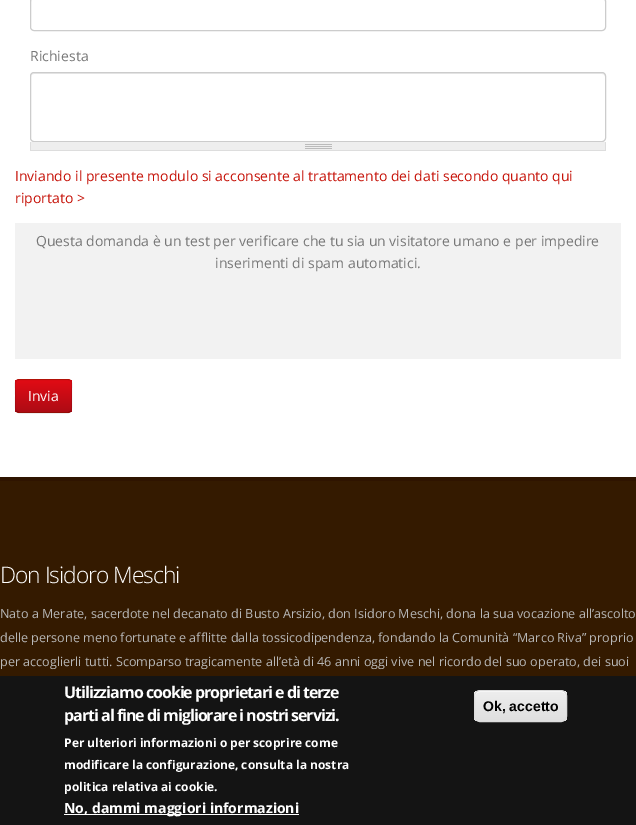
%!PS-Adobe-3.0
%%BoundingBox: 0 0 636 825
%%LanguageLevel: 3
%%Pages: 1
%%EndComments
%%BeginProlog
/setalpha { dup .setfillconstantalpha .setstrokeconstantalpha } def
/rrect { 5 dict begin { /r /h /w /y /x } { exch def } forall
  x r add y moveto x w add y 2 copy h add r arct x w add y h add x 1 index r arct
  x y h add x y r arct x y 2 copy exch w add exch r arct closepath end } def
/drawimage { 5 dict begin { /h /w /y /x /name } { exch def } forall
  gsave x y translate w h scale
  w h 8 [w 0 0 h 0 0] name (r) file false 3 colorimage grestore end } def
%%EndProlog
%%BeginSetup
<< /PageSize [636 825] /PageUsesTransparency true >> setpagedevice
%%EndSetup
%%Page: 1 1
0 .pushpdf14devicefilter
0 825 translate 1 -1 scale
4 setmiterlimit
1 setgray
0 0 636 825 rectfill
0.925 setgray
newpath 34 -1 moveto 602 -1 lineto 604 -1 605 0 605 2 curveto 605 1 lineto 605 -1 604 -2 602 -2 curveto 34 -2 lineto 32 -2 31 -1 31 1 curveto 31 2 lineto 31 0 32 -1 34 -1 curveto closepath fill
0.8 setgray
30.5 -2.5 575 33 3.5 rrect stroke
0.925 setgray
newpath 34 74 moveto 602 74 lineto 604 74 605 75 605 77 curveto 605 76 lineto 605 74 604 73 602 73 curveto 34 73 lineto 32 73 31 74 31 76 curveto 31 77 lineto 31 75 32 74 34 74 curveto closepath fill
0.8 setgray
30.5 72.5 575 69 3.5 rrect stroke
0.933 setgray
31 142 574 8 rectfill
(images/1.raw) 305 144 27 5 drawimage
0.867 setgray
605 142 1 9 rectfill
30 150 576 1 rectfill
30 142 1 9 rectfill
0.949 setgray
15 223 606 136 rectfill
0.776 0.075 0.035 setrgbcolor
15 379 57 34 4 rrect fill
gsave
15 379 57 34 4 rrect clip newpath
gsave newpath 15 380 moveto 72 380 lineto 72 412 lineto 15 412 lineto closepath clip newpath
<< /ShadingType 2 /ColorSpace /DeviceRGB /Coords [44 380 44 412] /Extend [true true] /Function << /FunctionType 2 /Domain [0 1] /C0 [0.882 0.043 0.078] /C1 [0.682 0.043 0.078] /N 1 >> >> shfill grestore
grestore
0.25 setalpha
0 setgray
newpath 70.5 411.5 moveto 68.5 412.5 lineto 18.5 412.5 lineto 16.5 411.5 lineto stroke
0.1 setalpha
newpath 16.5 411.5 moveto 14.5 409 15.5 399 15.5 396 curveto 15.5 379.5 12 379.5 27 379.5 curveto 60 379.5 lineto 75 379.5 71.5 379.5 71.5 396 curveto 71.5 399 72.5 409 70.5 411.5 curveto stroke
1 setalpha
0.204 0.102 0 setrgbcolor
0 481 636 195 rectfill
0.184 0.078 0 setrgbcolor
0 477 636 4 rectfill
0.078 setgray
0 676 636 149 rectfill
1 setgray
64 814 235 1 rectfill
gsave
474 690 93 32 6 rrect clip newpath
gsave newpath 474 691 moveto 567 691 lineto 567 721 lineto 474 721 lineto closepath clip newpath
<< /ShadingType 2 /ColorSpace /DeviceRGB /Coords [521 691 521 721] /Extend [true true] /Function << /FunctionType 3 /Domain [0 1] /Functions [<< /FunctionType 2 /Domain [0 1] /C0 [0.929 0.929 0.929] /C1 [0.929 0.929 0.929] /N 1 >> << /FunctionType 2 /Domain [0 1] /C0 [0.929 0.929 0.929] /C1 [0.875 0.875 0.875] /N 1 >>] /Bounds [0.05] /Encode [0 1 0 1] >> >> shfill grestore
grestore
newpath 480 692 moveto 561 692 lineto 564 692 566 694 566 697 curveto 566 688 553 691 548 691 curveto 494 691 lineto 488 691 475 688 475 697 curveto 475 694 477 692 480 692 curveto closepath fill
0.863 setgray
474.5 690.5 92 31 5.5 rrect stroke
/OpenSans-Regular [14 0 0 -14 0 0] selectfont
0.467 setgray
30 61 moveto (Richiesta) show
0.776 0.075 0.035 setrgbcolor
15 181 moveto (Inviando il presente modulo si acconsente al trattamento dei dati secondo quanto qui) show
15 203 moveto (riportato >) show
0.467 setgray
36 246 moveto (Questa domanda è un test per verificare che tu sia un visitatore umano e per impedire) show
215 268 moveto (inserimenti di spam automatici.) show
1 setgray
28 401 moveto (Invia) show
/OpenSans-Light [22.75 0 0 -22.75 0 0] selectfont
0 583 moveto -1 0 (Don Isidoro Meschi) ashow
/OpenSans-Regular [12.6 0 0 -12.6 0 0] selectfont
0.718 setgray
0 618 moveto (Nato a Merate, sacerdote nel decanato di Busto Arsizio, don Isidoro Meschi, dona la sua vocazione all’ascolto) show
0 642 moveto (delle persone meno fortunate e afflitte dalla tossicodipendenza, fondando la Comunità “Marco Riva” proprio) show
0 666 moveto (per accoglierli tutti. Scomparso tragicamente all’età di 46 anni oggi vive nel ricordo del suo operato, dei suoi) show
/OpenSans-Bold [16 0 0 -16 0 0] selectfont
1 setgray
64 698 moveto -1 0 (Utilizziamo cookie proprietari e di terze) ashow
64 721 moveto -1 0 (parti al fine di migliorare i nostri servizi.) ashow
/OpenSans-Bold [12 0 0 -12 0 0] selectfont
64 747 moveto (Per ulteriori informazioni o per scoprire come) show
64 769 moveto (modificare la configurazione, consulta la nostra) show
64 791 moveto (politica relativa ai cookie.) show
/OpenSans-Bold [14 0 0 -14 0 0] selectfont
64 813 moveto (No, dammi maggiori informazioni) show
/LiberationSans-Bold [14 0 0 -14 0 0] selectfont
0 setgray
483 711 moveto (Ok, accetto) show
.poppdf14devicefilter showpage
%%EOF
